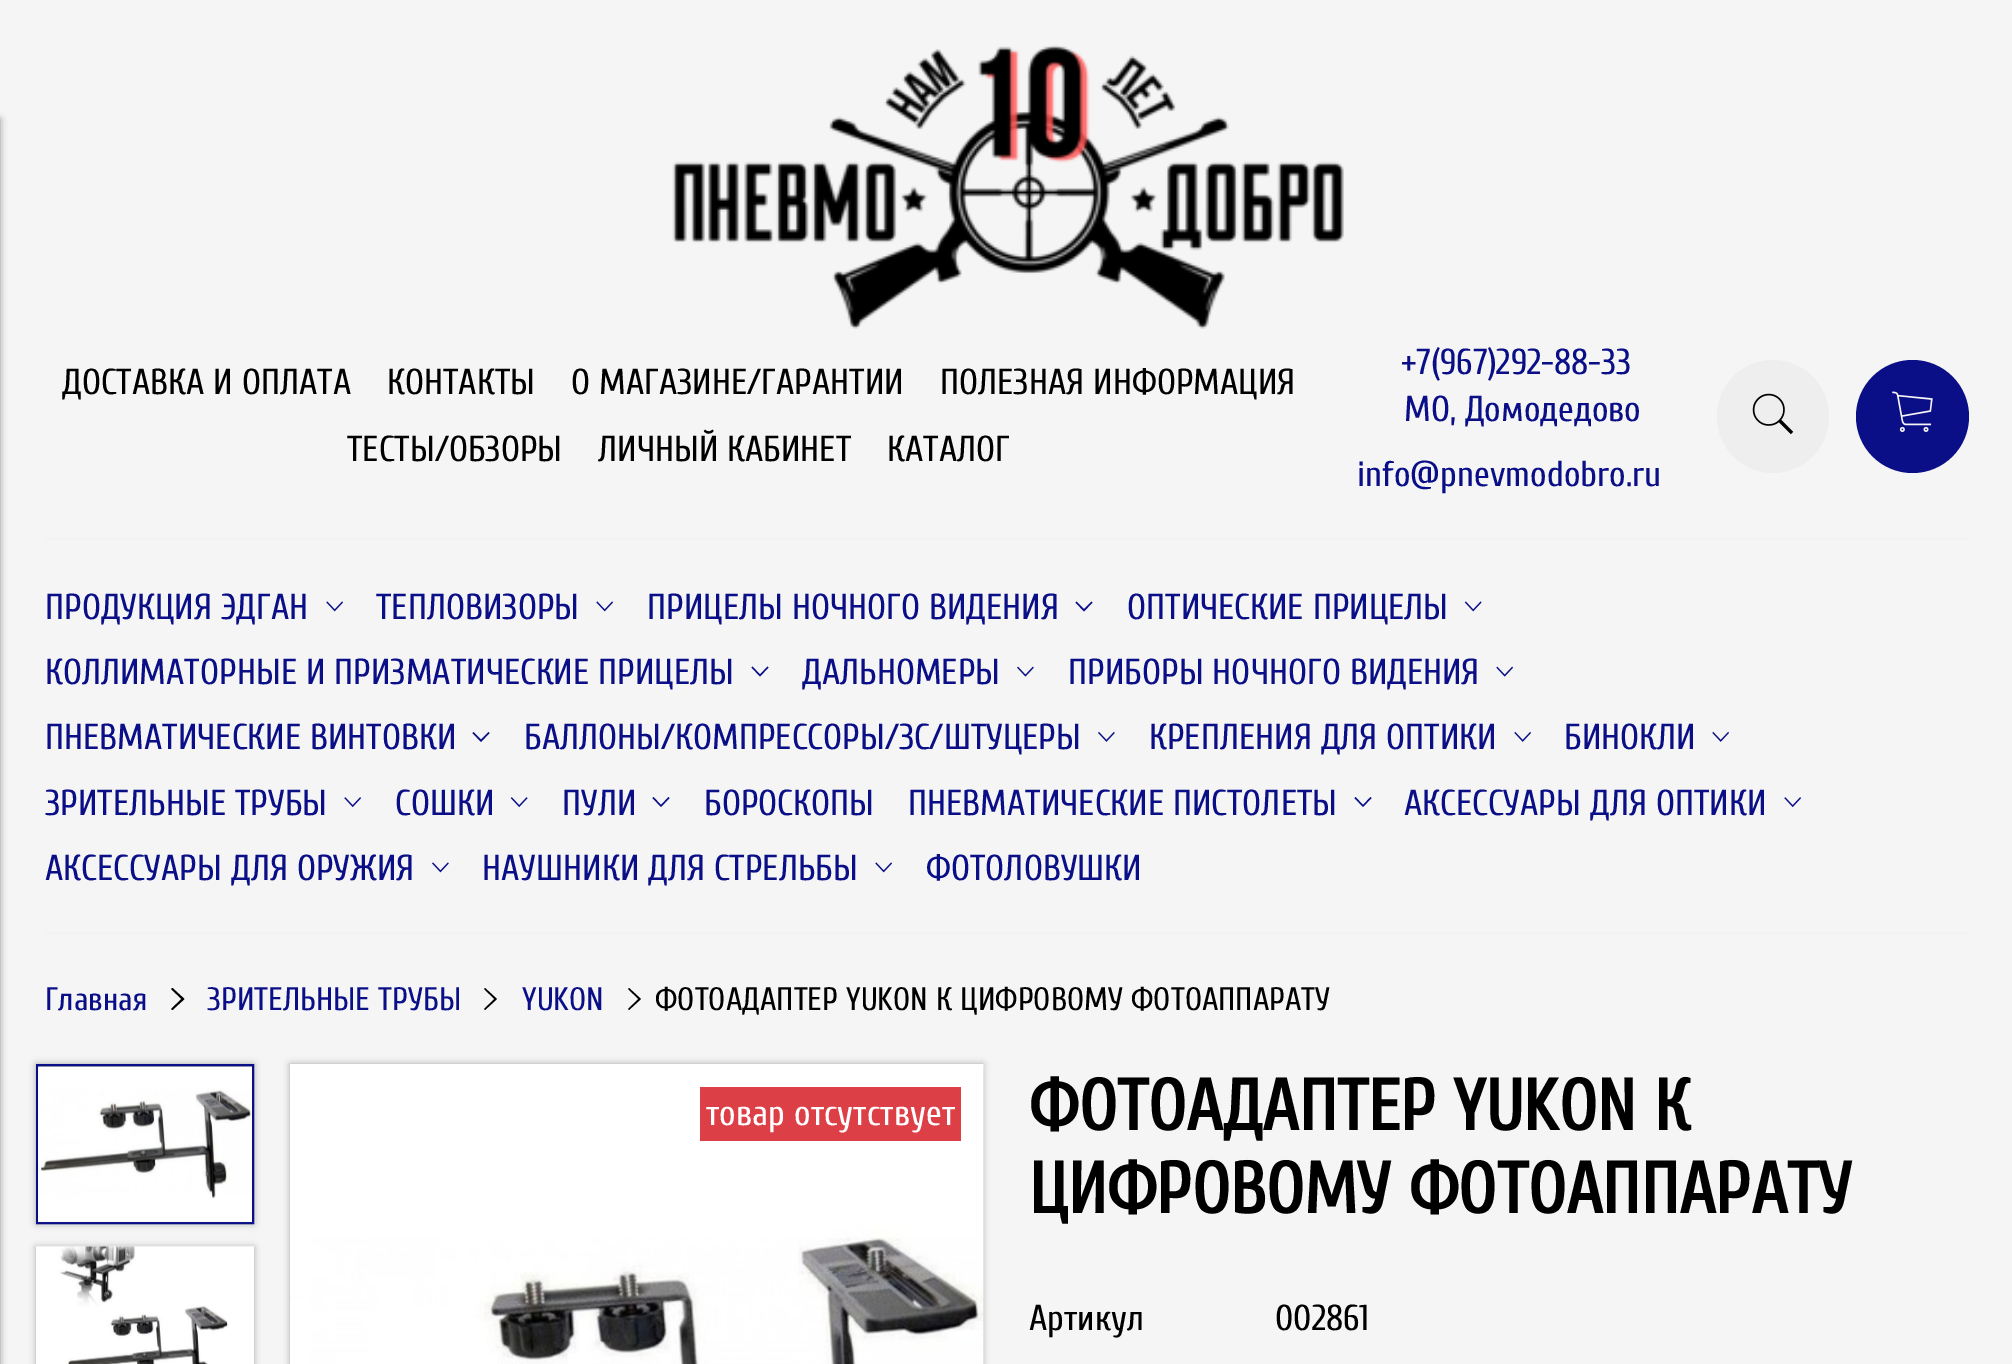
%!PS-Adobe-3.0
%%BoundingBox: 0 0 2012 1364
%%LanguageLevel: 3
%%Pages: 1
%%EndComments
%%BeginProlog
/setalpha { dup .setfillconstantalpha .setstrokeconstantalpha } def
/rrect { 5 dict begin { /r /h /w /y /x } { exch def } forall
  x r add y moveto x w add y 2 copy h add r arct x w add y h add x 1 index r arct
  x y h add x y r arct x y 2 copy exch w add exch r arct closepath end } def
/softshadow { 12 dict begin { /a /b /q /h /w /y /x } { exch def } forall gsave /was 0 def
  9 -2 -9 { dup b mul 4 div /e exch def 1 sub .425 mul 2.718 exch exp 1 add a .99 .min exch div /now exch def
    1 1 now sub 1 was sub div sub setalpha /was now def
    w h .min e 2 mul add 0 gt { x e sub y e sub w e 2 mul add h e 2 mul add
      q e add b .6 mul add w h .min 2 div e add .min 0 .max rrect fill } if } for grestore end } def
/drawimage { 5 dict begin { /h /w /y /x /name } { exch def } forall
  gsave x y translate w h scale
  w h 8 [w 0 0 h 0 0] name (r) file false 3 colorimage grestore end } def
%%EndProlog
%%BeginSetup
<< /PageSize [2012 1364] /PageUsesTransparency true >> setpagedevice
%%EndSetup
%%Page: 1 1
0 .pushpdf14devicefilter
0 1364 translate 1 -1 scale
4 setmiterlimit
0.961 setgray
0 0 2012 1364 rectfill
0 setgray
-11 119 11 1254 0 3.5 0.4 softshadow
(images/1.raw) 672 45 672 284 drawimage
0.933 setgray
1717 360 112 113 56 rrect fill
(images/2.raw) 1752 393 42 42 drawimage
0.039 0.059 0.529 setrgbcolor
newpath 1912.5 416.5 56.5 0 360 arc closepath fill
(images/3.raw) 1892 391 41 41 drawimage
0.949 setgray
45 538 1924 2 rectfill
(images/4.raw) 326 601 17 11 drawimage
(images/4.raw) 596 601 17 11 drawimage
0.039 0.059 0.529 setrgbcolor
newpath 1091.5 601.5 moveto 1092.5 602.5 lineto 1084 611.5 lineto 1075.5 602.5 lineto 1076.5 601.5 lineto 1084 609 lineto closepath fill
(images/5.raw) 1464 601 18 11 drawimage
newpath 767.5 666.5 moveto 768.5 667.5 lineto 760 676.5 lineto 751.5 667.5 lineto 752.5 666.5 lineto 760 674.5 lineto closepath fill
(images/6.raw) 1017 666 17 11 drawimage
(images/7.raw) 1496 666 17 11 drawimage
newpath 488.5 732 moveto 489.5 733 lineto 481 742 lineto 472.5 733 lineto 473.5 732 lineto 481 739.5 lineto closepath fill
(images/8.raw) 1098 731 17 11 drawimage
(images/9.raw) 1514 731 17 11 drawimage
(images/9.raw) 1712 731 17 11 drawimage
(images/10.raw) 344 797 17 11 drawimage
(images/11.raw) 510 797 18 11 drawimage
newpath 668.5 797 moveto 669.5 798 lineto 661 807 lineto 652.5 798 lineto 653.5 797 lineto 661 805 lineto closepath fill
newpath 1370.5 797 moveto 1371.5 798 lineto 1363 807 lineto 1354.5 798 lineto 1355.5 797 lineto 1363 805 lineto closepath fill
(images/10.raw) 1784 797 17 11 drawimage
(images/12.raw) 432 862 17 11 drawimage
(images/4.raw) 875 862 17 11 drawimage
0.949 setgray
45 932 1924 2 rectfill
0 setgray
newpath 171 989 moveto 172.5 988 lineto 184.5 999 lineto 172.5 1010 lineto 171 1009 lineto 181.5 999 lineto closepath fill
newpath 484 989 moveto 485 988 lineto 497 999 lineto 485 1010 lineto 484 1009 lineto 494.5 999 lineto closepath fill
newpath 628 989 moveto 629 988 lineto 641 999 lineto 629 1010 lineto 628 1009 lineto 638.5 999 lineto closepath fill
36 1064 218 160 0 3.5 0.3 softshadow
0.039 0.059 0.529 setrgbcolor
2 setlinewidth
37 1065 216 158 rectstroke
(images/13.raw) 38 1067 214 156 drawimage
0 setgray
36 1247 218 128 0 3.5 0.3 softshadow
(images/14.raw) 36 1246 218 118 drawimage
290 1064 693 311 0 3.5 0.3 softshadow
(images/15.raw) 290 1064 694 300 drawimage
0.867 0.247 0.275 setrgbcolor
700 1087 261 54 rectfill
/Cuprum-Regular [36 0 0 -36 0 0] selectfont
0 setgray
62 394 moveto (ДОСТАВКА И ОПЛАТА) show
387 394 moveto (КОНТАКТЫ) show
571 394 moveto (О МАГАЗИНЕ/ГАРАНТИИ) show
940 394 moveto (ПОЛЕЗНАЯ ИНФОРМАЦИЯ) show
347 461 moveto (ТЕСТЫ/ОБЗОРЫ) show
598 461 moveto (ЛИЧНЫЙ КАБИНЕТ) show
887 461 moveto (КАТАЛОГ) show
0.039 0.059 0.529 setrgbcolor
1401 374 moveto (+7\(967\)292-88-33) show
1404 421 moveto (МО, Домодедово) show
1357 486 moveto (info@pnevmodobro.ru) show
45 619 moveto (ПРОДУКЦИЯ ЭДГАН) show
376 619 moveto (ТЕПЛОВИЗОРЫ) show
647 619 moveto (ПРИЦЕЛЫ НОЧНОГО ВИДЕНИЯ) show
1127 619 moveto (ОПТИЧЕСКИЕ ПРИЦЕЛЫ) show
45 684 moveto (КОЛЛИМАТОРНЫЕ И ПРИЗМАТИЧЕСКИЕ ПРИЦЕЛЫ) show
802 684 moveto (ДАЛЬНОМЕРЫ) show
1068 684 moveto (ПРИБОРЫ НОЧНОГО ВИДЕНИЯ) show
45 749 moveto (ПНЕВМАТИЧЕСКИЕ ВИНТОВКИ) show
524 749 moveto (БАЛЛОНЫ/КОМПРЕССОРЫ/ЗС/ШТУЦЕРЫ) show
1149 749 moveto (КРЕПЛЕНИЯ ДЛЯ ОПТИКИ) show
1564 749 moveto (БИНОКЛИ) show
45 815 moveto (ЗРИТЕЛЬНЫЕ ТРУБЫ) show
395 815 moveto (СОШКИ) show
562 815 moveto (ПУЛИ) show
704 815 moveto (БОРОСКОПЫ) show
908 815 moveto (ПНЕВМАТИЧЕСКИЕ ПИСТОЛЕТЫ) show
1404 815 moveto (АКСЕССУАРЫ ДЛЯ ОПТИКИ) show
45 880 moveto (АКСЕССУАРЫ ДЛЯ ОРУЖИЯ) show
482 880 moveto (НАУШНИКИ ДЛЯ СТРЕЛЬБЫ) show
926 880 moveto (ФОТОЛОВУШКИ) show
/Cuprum-Regular [32.4 0 0 -32.4 0 0] selectfont
45 1010 moveto (Главная) show
207 1010 moveto (ЗРИТЕЛЬНЫЕ ТРУБЫ) show
522 1010 moveto (YUKON) show
0 setgray
655 1010 moveto (ФОТОАДАПТЕР YUKON К ЦИФРОВОМУ ФОТОАППАРАТУ) show
/Cuprum-Regular [36 0 0 -36 0 0] selectfont
1 setgray
706 1125 moveto (товар отсутствует) show
/Cuprum-Bold [72 0 0 -72 0 0] selectfont
0 setgray
1029 1130 moveto (ФОТОАДАПТЕР YUKON К) show
1029 1213 moveto (ЦИФРОВОМУ ФОТОАППАРАТУ) show
/Cuprum-Regular [36 0 0 -36 0 0] selectfont
1029 1330 moveto (Артикул) show
1275 1330 moveto (002861) show
.poppdf14devicefilter showpage
%%EOF
